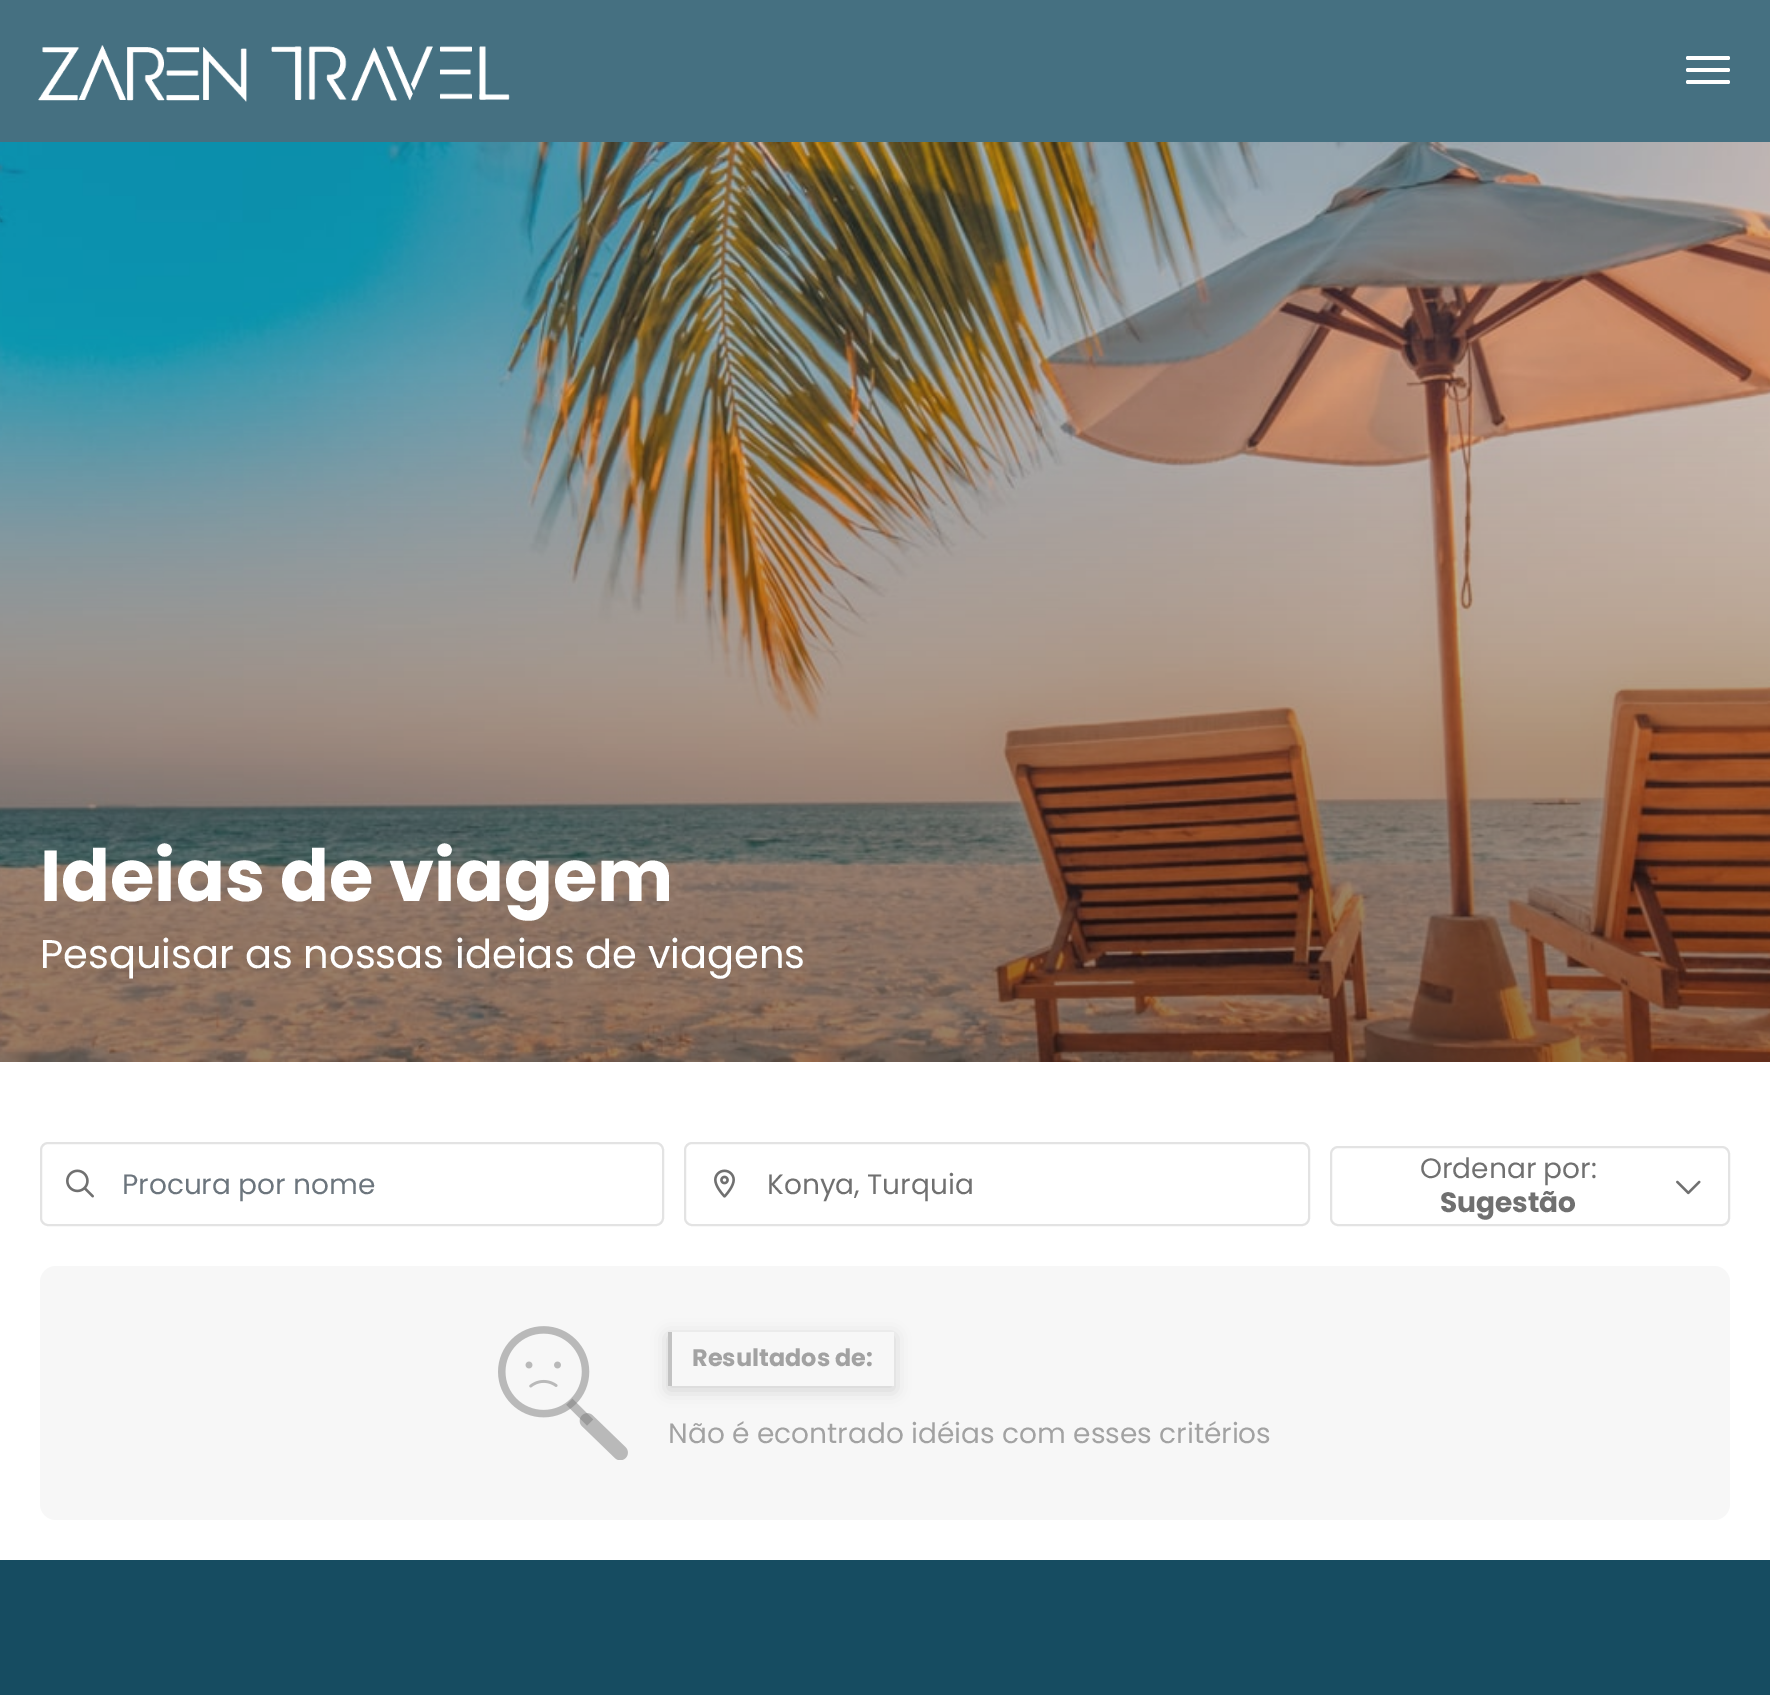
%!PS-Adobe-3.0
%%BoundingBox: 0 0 1770 1695
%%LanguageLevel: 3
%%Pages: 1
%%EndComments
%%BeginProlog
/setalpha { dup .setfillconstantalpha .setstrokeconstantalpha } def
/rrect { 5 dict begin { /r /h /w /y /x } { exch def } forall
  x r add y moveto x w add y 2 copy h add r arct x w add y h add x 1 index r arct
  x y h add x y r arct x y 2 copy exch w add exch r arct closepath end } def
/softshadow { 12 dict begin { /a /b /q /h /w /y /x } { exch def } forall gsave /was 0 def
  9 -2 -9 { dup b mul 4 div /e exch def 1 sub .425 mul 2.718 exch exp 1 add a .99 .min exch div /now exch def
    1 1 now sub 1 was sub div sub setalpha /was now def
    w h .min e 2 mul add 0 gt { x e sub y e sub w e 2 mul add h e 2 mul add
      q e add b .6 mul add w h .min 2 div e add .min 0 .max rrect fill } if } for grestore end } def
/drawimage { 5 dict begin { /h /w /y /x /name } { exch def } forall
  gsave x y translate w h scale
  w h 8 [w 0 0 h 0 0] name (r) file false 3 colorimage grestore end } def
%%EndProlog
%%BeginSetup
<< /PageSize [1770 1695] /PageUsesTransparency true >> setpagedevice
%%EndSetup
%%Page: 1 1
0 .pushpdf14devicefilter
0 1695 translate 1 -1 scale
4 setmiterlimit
1 setgray
0 0 1770 1695 rectfill
0.271 0.439 0.506 setrgbcolor
0 0 1770 142 rectfill
(images/1.raw) 38 45 472 57 drawimage
1 setgray
1686 56 44 4 2 rrect fill
1686 68 44 4 2 rrect fill
1686 80 44 4 2 rrect fill
(images/2.raw) 0 142 1770 920 drawimage
0.89 setgray
2 setlinewidth
41 1143 622 82 7 rrect stroke
(images/3.raw) 66 1169 28 29 drawimage
685 1143 624 82 7 rrect stroke
(images/4.raw) 714 1169 21 29 drawimage
1331 1147 398 78 7 rrect stroke
(images/5.raw) 1676 1180 25 15 drawimage
0.969 setgray
40 1266 1690 254 16 rrect fill
(images/6.raw) 498 1326 130 134 drawimage
gsave
newpath 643 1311 moveto 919 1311 lineto 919 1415 lineto 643 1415 lineto closepath 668 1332 moveto 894 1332 lineto 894 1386 lineto 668 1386 lineto closepath eoclip newpath
0 setgray
668 1336 226 54 0 8 0.15 softshadow
grestore
0.761 setgray
668 1332 4 54 rectfill
0.086 0.298 0.38 setrgbcolor
0 1560 1770 135 rectfill
/Poppins-Bold [72 0 0 -72 0 0] selectfont
1 setgray
40 901 moveto (Ideias de viagem) show
/Poppins-Regular [40 0 0 -40 0 0] selectfont
40 968 moveto (Pesquisar as nossas ideias de viagens) show
/Poppins-Regular [28 0 0 -28 0 0] selectfont
0.424 0.459 0.49 setrgbcolor
122 1194 moveto (Procura por nome) show
0.439 setgray
767 1194 moveto (Konya, Turquia) show
1420 1178 moveto (Ordenar por:) show
/Poppins-Bold [28 0 0 -28 0 0] selectfont
1440 1212 moveto (Sugestão) show
/Poppins-Bold [24 0 0 -24 0 0] selectfont
0.635 setgray
692 1366 moveto (Resultados de:) show
/Poppins-Regular [28 0 0 -28 0 0] selectfont
668 1443 moveto (Não é econtrado idéias com esses critérios) show
.poppdf14devicefilter showpage
%%EOF
